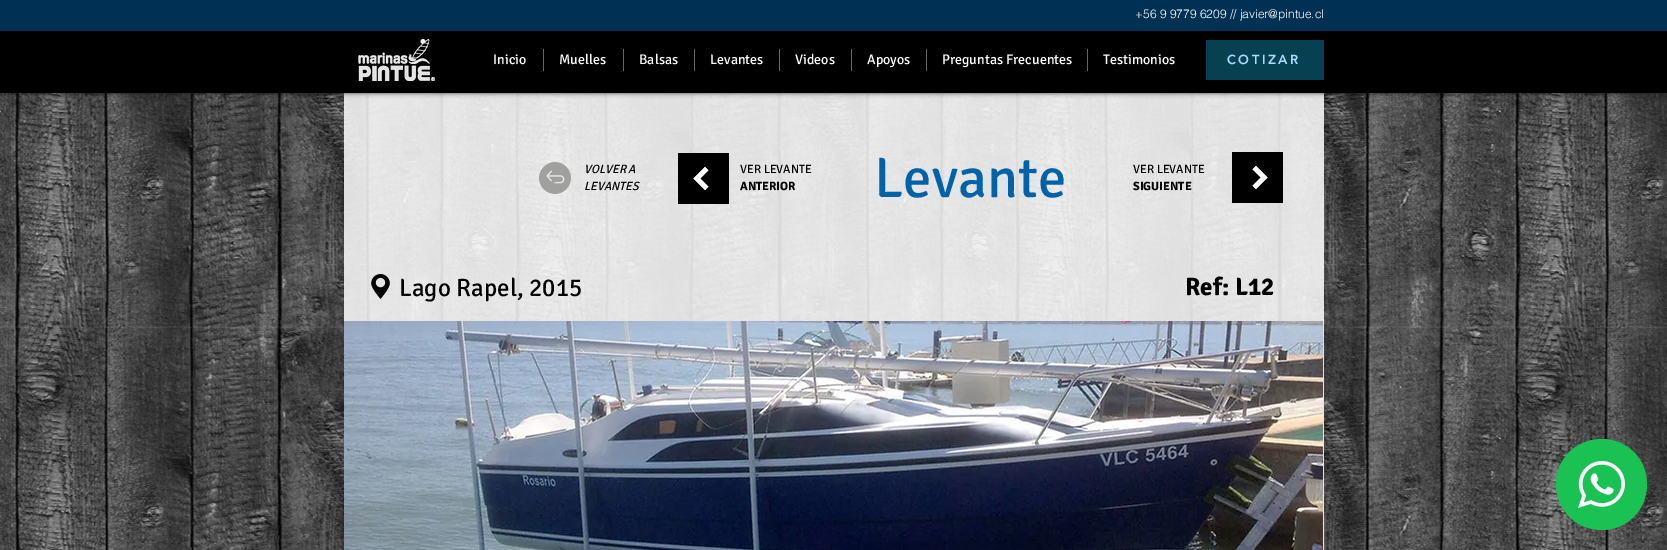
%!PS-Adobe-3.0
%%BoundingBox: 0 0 1667 550
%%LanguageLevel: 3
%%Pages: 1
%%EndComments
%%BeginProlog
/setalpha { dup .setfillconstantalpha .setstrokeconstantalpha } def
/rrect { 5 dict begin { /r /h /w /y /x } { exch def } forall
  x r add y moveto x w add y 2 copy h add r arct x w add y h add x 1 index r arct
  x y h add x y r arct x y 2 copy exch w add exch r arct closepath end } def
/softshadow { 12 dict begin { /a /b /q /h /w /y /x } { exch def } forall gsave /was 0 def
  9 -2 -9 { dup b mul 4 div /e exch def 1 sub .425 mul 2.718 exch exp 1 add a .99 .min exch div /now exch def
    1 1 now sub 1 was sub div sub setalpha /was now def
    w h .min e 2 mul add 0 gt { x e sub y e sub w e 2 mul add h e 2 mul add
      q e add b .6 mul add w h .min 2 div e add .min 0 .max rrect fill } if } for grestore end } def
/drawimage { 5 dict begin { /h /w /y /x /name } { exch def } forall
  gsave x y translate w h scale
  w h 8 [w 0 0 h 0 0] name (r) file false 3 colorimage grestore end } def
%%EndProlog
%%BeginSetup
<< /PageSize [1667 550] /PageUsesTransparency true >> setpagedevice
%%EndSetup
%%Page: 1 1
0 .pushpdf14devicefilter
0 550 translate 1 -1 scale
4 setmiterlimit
1 setgray
0 0 1667 550 rectfill
(images/8.raw) 0 93 1667 457 drawimage
0.85 setalpha
344 93 980 457 rectfill
1 setalpha
0 setgray
0 0 1667 93 0 2.5 0.7 softshadow
0 31 1667 62 rectfill
0 0.192 0.329 setrgbcolor
0 0 1667 31 rectfill
(images/1.raw) 358 39 77 42 drawimage
0.4 setgray
543 49 1 22 rectfill
623 49 1 22 rectfill
694 49 1 22 rectfill
779 49 1 22 rectfill
851 49 1 22 rectfill
926 49 1 22 rectfill
1087 49 1 22 rectfill
0.027 0.255 0.318 setrgbcolor
1206 40 118 40 rectfill
(images/2.raw) 539 162 32 32 drawimage
(images/3.raw) 678 153 51 51 drawimage
(images/4.raw) 1232 152 51 51 drawimage
(images/5.raw) 371 274 19 25 drawimage
(images/6.raw) 344 321 979 229 drawimage
0.102 0.761 0.329 setrgbcolor
newpath 1647 484 moveto 1647 510 1627 530 1602 530 curveto 1576 530 1556 510 1556 484 curveto 1556 459 1576 439 1602 439 curveto 1627 439 1647 459 1647 484 curveto closepath fill
(images/7.raw) 1578 461 47 47 drawimage
/helvetica-Light [12 0 0 -12 0 0] selectfont
1 setgray
1135 18 moveto (+56 9 9779 6209 // javier@pintue.cl) show
/Signika-Regular [14 0 0 -14 0 0] selectfont
493 64 moveto (Inicio) show
559 64 moveto (Muelles) show
639 64 moveto (Balsas) show
710 64 moveto (Levantes) show
795 64 moveto (Videos) show
867 64 moveto (Apoyos) show
942 64 moveto (Preguntas Frecuentes) show
1103 64 moveto (Testimonios) show
/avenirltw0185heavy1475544-Black [13 0 0 -13 0 0] selectfont
0.667 0.859 1 setrgbcolor
1227 64 moveto 2.5 0 (COTIZAR) ashow
/Signika-Italic [12 0 0 -12 0 0] selectfont
0 setgray
584 173 moveto (VOLVER A) show
584 190 moveto (LEVANTES) show
/Signika-Regular [12 0 0 -12 0 0] selectfont
740 173 moveto (VER LEVANTE) show
/Signika-Bold [12 0 0 -12 0 0] selectfont
740 190 moveto (ANTERIOR) show
/Signika-Regular [57 0 0 -57 0 0] selectfont
0 0.388 0.663 setrgbcolor
874 197 moveto (Levante) show
/Signika-Regular [12 0 0 -12 0 0] selectfont
0 setgray
1133 173 moveto (VER LEVANTE) show
/Signika-Bold [12 0 0 -12 0 0] selectfont
1133 190 moveto (SIGUIENTE) show
/Signika-Regular [25 0 0 -25 0 0] selectfont
399 296 moveto (Lago Rapel, 2015) show
/Signika-Bold [25 0 0 -25 0 0] selectfont
1185 295 moveto (Ref: L12) show
.poppdf14devicefilter showpage
%%EOF
